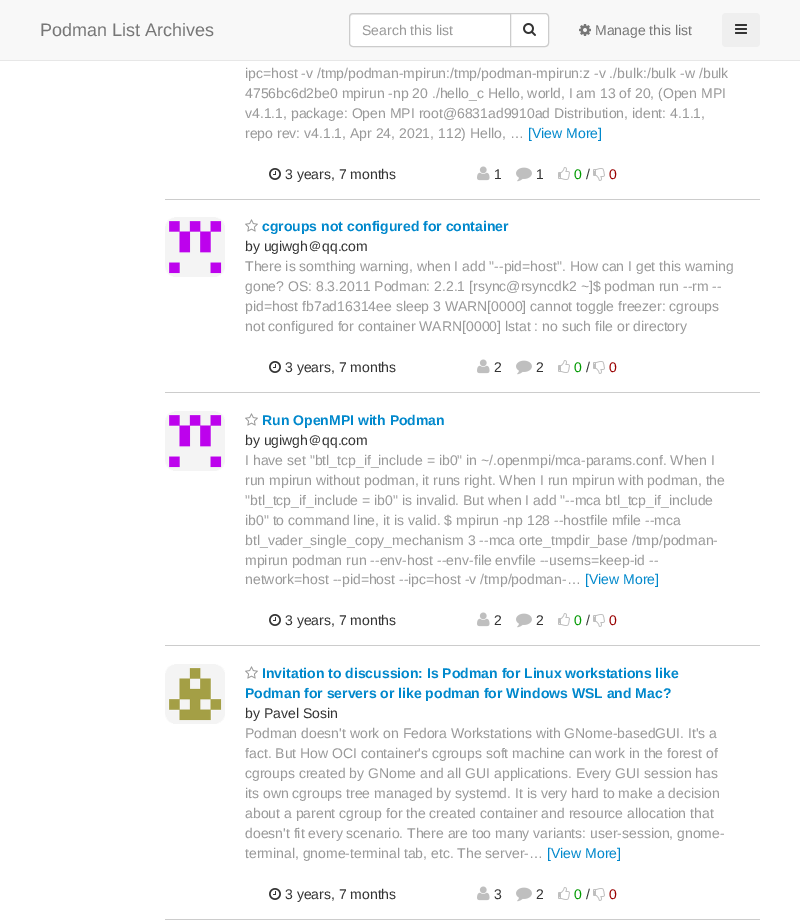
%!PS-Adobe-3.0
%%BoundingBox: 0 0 800 922
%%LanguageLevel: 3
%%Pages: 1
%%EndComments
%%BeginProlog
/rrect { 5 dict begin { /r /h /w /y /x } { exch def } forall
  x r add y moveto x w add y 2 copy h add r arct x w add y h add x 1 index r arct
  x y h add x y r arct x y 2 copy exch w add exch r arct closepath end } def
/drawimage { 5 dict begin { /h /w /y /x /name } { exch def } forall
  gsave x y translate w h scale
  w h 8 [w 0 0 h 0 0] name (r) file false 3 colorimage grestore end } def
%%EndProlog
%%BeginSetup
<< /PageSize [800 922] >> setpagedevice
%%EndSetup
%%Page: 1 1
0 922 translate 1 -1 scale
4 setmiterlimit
1 setgray
0 0 800 922 rectfill
0.973 setgray
0 0 800 60 rectfill
0.906 setgray
0 60 800 1 rectfill
1 setgray
newpath 353 13 moveto 511 13 lineto 511 47 lineto 353 47 lineto 351 47 349 45 349 43 curveto 349 17 lineto 349 15 351 13 353 13 curveto closepath fill
0.925 setgray
newpath 353 15 moveto 510 15 lineto 510 14 lineto 352 14 lineto 350 14 350 16 350 18 curveto 350 16 351 15 353 15 curveto closepath fill
0.8 setgray
newpath 353 13.5 moveto 510.5 13.5 lineto 510.5 46.5 lineto 353 46.5 lineto 351 46.5 349.5 45 349.5 43 curveto 349.5 17 lineto 349.5 15 351 13.5 353 13.5 curveto closepath stroke
1 setgray
newpath 510.5 13.5 moveto 545 13.5 lineto 547 13.5 548.5 15 548.5 17 curveto 548.5 43 lineto 548.5 45 547 46.5 545 46.5 curveto 510.5 46.5 lineto closepath gsave fill grestore
0.8 setgray
stroke
(images/1.raw) 523 23 13 13 drawimage
(images/2.raw) 579 24 12 12 drawimage
0.937 setgray
722 13 38 34 4 rrect fill
(images/3.raw) 735 24 12 10 drawimage
0.8 setgray
165 199 595 1 rectfill
(images/4.raw) 269 168 12 12 drawimage
(images/5.raw) 477 166 13 15 drawimage
(images/6.raw) 516 167 16 15 drawimage
(images/7.raw) 558 167 12 13 drawimage
(images/8.raw) 593 168 12 13 drawimage
165 392 595 1 rectfill
(images/9.raw) 165 217 60 60 drawimage
(images/10.raw) 245 219 13 13 drawimage
(images/4.raw) 269 361 12 12 drawimage
(images/5.raw) 477 359 13 15 drawimage
(images/6.raw) 516 360 16 15 drawimage
(images/7.raw) 558 360 12 13 drawimage
(images/8.raw) 593 361 12 13 drawimage
165 645 595 1 rectfill
(images/9.raw) 165 411 60 60 drawimage
(images/10.raw) 245 413 13 13 drawimage
(images/4.raw) 269 614 12 12 drawimage
(images/5.raw) 477 612 13 15 drawimage
(images/6.raw) 516 613 16 15 drawimage
(images/7.raw) 558 613 12 13 drawimage
(images/8.raw) 593 614 12 13 drawimage
165 919 595 1 rectfill
(images/11.raw) 165 664 60 60 drawimage
(images/10.raw) 245 666 13 13 drawimage
(images/4.raw) 269 888 12 12 drawimage
(images/5.raw) 477 886 13 15 drawimage
(images/6.raw) 516 887 16 15 drawimage
(images/7.raw) 558 887 12 13 drawimage
(images/8.raw) 593 888 12 13 drawimage
/LiberationSans-Regular [18 0 0 -18 0 0] selectfont
0.467 setgray
40 36 moveto (Podman List Archives) show
/LiberationSans-Regular [14 0 0 -14 0 0] selectfont
0.6 setgray
362 35 moveto (Search this list) show
0.467 setgray
595 35 moveto (Manage this list) show
0.6 setgray
245 78 moveto (ipc=host -v /tmp/podman-mpirun:/tmp/podman-mpirun:z -v ./bulk:/bulk -w /bulk) show
245 98 moveto (4756bc6d2be0 mpirun -np 20 ./hello_c Hello, world, I am 13 of 20, \(Open MPI) show
245 118 moveto (v4.1.1, package: Open MPI root@6831ad9910ad Distribution, ident: 4.1.1,) show
245 138 moveto (repo rev: v4.1.1, Apr 24, 2021, 112\) Hello, …) show
0 0.533 0.8 setrgbcolor
528 138 moveto ([View More]) show
0.2 setgray
285 179 moveto (3 years, 7 months) show
494 179 moveto (1) show
536 179 moveto (1) show
0 0.6 0 setrgbcolor
574 179 moveto (0) show
0.2 setgray
586 179 moveto (/) show
0.6 0 0 setrgbcolor
609 179 moveto (0) show
/LiberationSans-Bold [14 0 0 -14 0 0] selectfont
0 0.533 0.8 setrgbcolor
262 231 moveto (cgroups not configured for container) show
/LiberationSans-Regular [14 0 0 -14 0 0] selectfont
0.2 setgray
245 251 moveto (by ugiwgh) show
/WenQuanYiZenHei-Medium [14 0 0 -14 0 0] selectfont
308 251 moveto (＠) show
/LiberationSans-Regular [14 0 0 -14 0 0] selectfont
322 251 moveto (qq.com) show
0.6 setgray
245 271 moveto (There is somthing warning, when I add "--pid=host". How can I get this warning) show
245 291 moveto (gone? OS: 8.3.2011 Podman: 2.2.1 [rsync@rsyncdk2 ~]$ podman run --rm --) show
245 311 moveto (pid=host fb7ad16314ee sleep 3 WARN[0000] cannot toggle freezer: cgroups) show
245 331 moveto (not configured for container WARN[0000] lstat : no such file or directory) show
0.2 setgray
285 372 moveto (3 years, 7 months) show
494 372 moveto (2) show
536 372 moveto (2) show
0 0.6 0 setrgbcolor
574 372 moveto (0) show
0.2 setgray
586 372 moveto (/) show
0.6 0 0 setrgbcolor
609 372 moveto (0) show
/LiberationSans-Bold [14 0 0 -14 0 0] selectfont
0 0.533 0.8 setrgbcolor
262 425 moveto (Run OpenMPI with Podman) show
/LiberationSans-Regular [14 0 0 -14 0 0] selectfont
0.2 setgray
245 445 moveto (by ugiwgh) show
/WenQuanYiZenHei-Medium [14 0 0 -14 0 0] selectfont
308 445 moveto (＠) show
/LiberationSans-Regular [14 0 0 -14 0 0] selectfont
322 445 moveto (qq.com) show
0.6 setgray
245 465 moveto (I have set "btl_tcp_if_include = ib0" in ~/.openmpi/mca-params.conf. When I) show
245 485 moveto (run mpirun without podman, it runs right. When I run mpirun with podman, the) show
245 505 moveto ("btl_tcp_if_include = ib0" is invalid. But when I add "--mca btl_tcp_if_include) show
245 525 moveto (ib0" to command line, it is valid. $ mpirun -np 128 --hostfile mfile --mca) show
245 545 moveto (btl_vader_single_copy_mechanism 3 --mca orte_tmpdir_base /tmp/podman-) show
245 565 moveto (mpirun podman run --env-host --env-file envfile --userns=keep-id --) show
245 584 moveto (network=host --pid=host --ipc=host -v /tmp/podman-…) show
0 0.533 0.8 setrgbcolor
585 584 moveto ([View More]) show
0.2 setgray
285 625 moveto (3 years, 7 months) show
494 625 moveto (2) show
536 625 moveto (2) show
0 0.6 0 setrgbcolor
574 625 moveto (0) show
0.2 setgray
586 625 moveto (/) show
0.6 0 0 setrgbcolor
609 625 moveto (0) show
/LiberationSans-Bold [14 0 0 -14 0 0] selectfont
0 0.533 0.8 setrgbcolor
262 678 moveto (Invitation to discussion: Is Podman for Linux workstations like) show
245 698 moveto (Podman for servers or like podman for Windows WSL and Mac?) show
/LiberationSans-Regular [14 0 0 -14 0 0] selectfont
0.2 setgray
245 718 moveto (by Pavel Sosin) show
0.6 setgray
245 738 moveto (Podman doesn't work on Fedora Workstations with GNome-basedGUI. It's a) show
245 758 moveto (fact. But How OCI container's cgroups soft machine can work in the forest of) show
245 778 moveto (cgroups created by GNome and all GUI applications. Every GUI session has) show
245 798 moveto (its own cgroups tree managed by systemd. It is very hard to make a decision) show
245 818 moveto (about a parent cgroup for the created container and resource allocation that) show
245 838 moveto (doesn't fit every scenario. There are too many variants: user-session, gnome-) show
245 858 moveto (terminal, gnome-terminal tab, etc. The server-…) show
0 0.533 0.8 setrgbcolor
547 858 moveto ([View More]) show
0.2 setgray
285 899 moveto (3 years, 7 months) show
494 899 moveto (3) show
536 899 moveto (2) show
0 0.6 0 setrgbcolor
574 899 moveto (0) show
0.2 setgray
586 899 moveto (/) show
0.6 0 0 setrgbcolor
609 899 moveto (0) show
showpage
%%EOF
